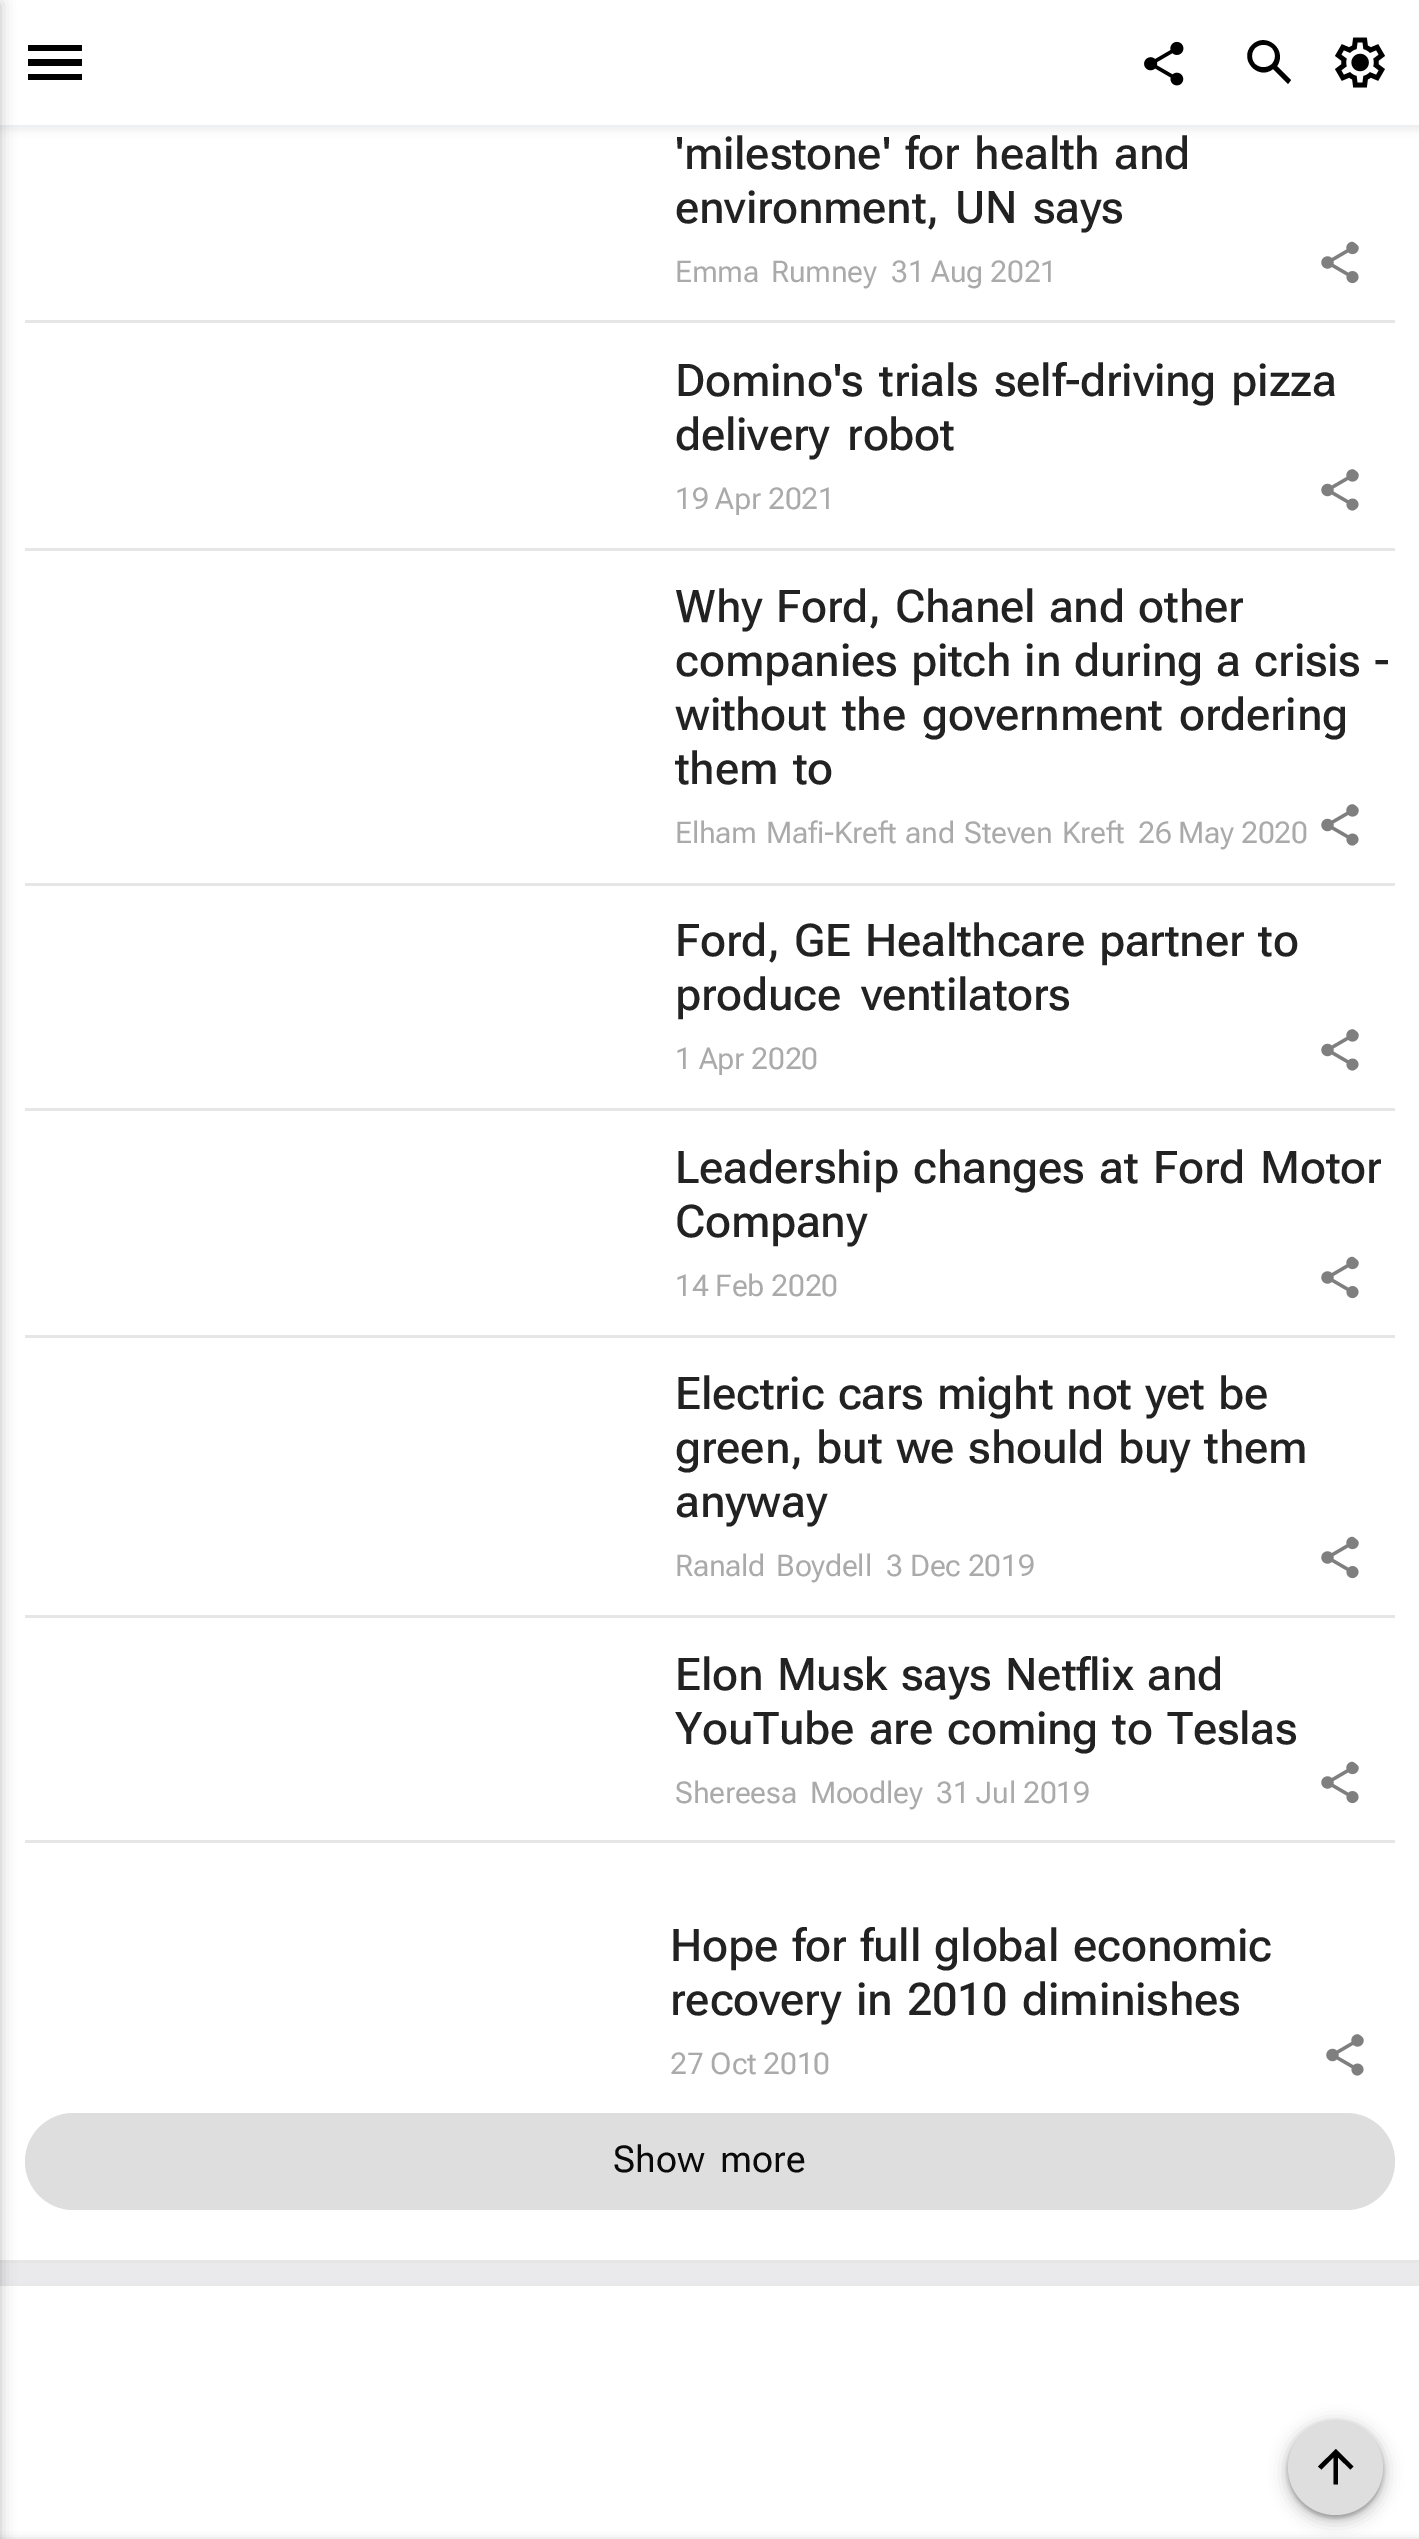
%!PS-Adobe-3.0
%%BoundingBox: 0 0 1419 2539
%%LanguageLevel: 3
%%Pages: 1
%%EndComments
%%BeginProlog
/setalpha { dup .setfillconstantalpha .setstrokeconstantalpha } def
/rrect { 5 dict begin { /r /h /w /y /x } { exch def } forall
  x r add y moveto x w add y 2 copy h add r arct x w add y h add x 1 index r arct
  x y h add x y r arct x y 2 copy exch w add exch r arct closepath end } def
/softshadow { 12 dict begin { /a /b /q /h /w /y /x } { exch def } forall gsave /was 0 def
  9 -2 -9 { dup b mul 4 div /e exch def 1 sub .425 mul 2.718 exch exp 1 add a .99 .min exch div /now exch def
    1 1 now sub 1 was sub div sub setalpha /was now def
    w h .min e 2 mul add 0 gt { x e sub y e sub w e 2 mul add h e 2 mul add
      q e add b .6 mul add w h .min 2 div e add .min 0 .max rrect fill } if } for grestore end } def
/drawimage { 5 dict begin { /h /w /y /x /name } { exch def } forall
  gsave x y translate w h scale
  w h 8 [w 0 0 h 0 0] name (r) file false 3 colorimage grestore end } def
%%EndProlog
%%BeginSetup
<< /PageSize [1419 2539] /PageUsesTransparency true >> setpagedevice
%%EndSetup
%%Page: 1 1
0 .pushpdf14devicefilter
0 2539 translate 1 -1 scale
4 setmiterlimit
1 setgray
0 0 1419 2539 rectfill
0.255 0.271 0.286 setrgbcolor
-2 0 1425 130 0 4 0.1 softshadow
1 setgray
0 0 1419 125 rectfill
0.918 0.918 0.925 setrgbcolor
0 2263 1419 20 rectfill
0.902 setgray
0 2260 1419 3 rectfill
0.914 setgray
0 2283 1419 3 rectfill
0.125 0.129 0.141 setrgbcolor
-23 3 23 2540 0 7.5 0.28 softshadow
0 setgray
newpath 28 80 moveto 28 74 lineto 82 74 lineto 82 80 lineto closepath 28 66 moveto 28 59 lineto 82 59 lineto 82 66 lineto closepath 28 51 moveto 28 45 lineto 82 45 lineto 82 51 lineto closepath fill
(images/1.raw) 1144 41 40 45 drawimage
newpath 1291 80 moveto 1277 66 lineto 1288 50 1266 31 1252 45 curveto 1238 59 1258 81 1273 69 curveto 1288 84 lineto closepath 1252 56 moveto 1252 41 1275 41 1275 56 curveto 1275 71 1252 71 1252 56 curveto closepath fill
(images/2.raw) 1335 37 50 51 drawimage
0.902 setgray
25 320 1370 3 rectfill
(images/3.raw) 1321 241 38 43 drawimage
25 548 1370 3 rectfill
(images/4.raw) 1321 469 38 42 drawimage
25 883 1370 3 rectfill
(images/4.raw) 1321 804 38 42 drawimage
25 1108 1370 3 rectfill
(images/4.raw) 1321 1029 38 42 drawimage
25 1335 1370 3 rectfill
(images/3.raw) 1321 1256 38 43 drawimage
25 1615 1370 3 rectfill
(images/3.raw) 1321 1536 38 43 drawimage
25 1840 1370 3 rectfill
(images/3.raw) 1321 1761 38 43 drawimage
(images/4.raw) 1326 2034 38 42 drawimage
0.871 setgray
25 2113 1370 97 48.5 rrect fill
0 setgray
1288 2423 95 95 47.5 2.5 0.3 softshadow
1283 2420 105 105 52.5 7.5 0.15 softshadow
0.871 setgray
newpath 1335.5 2467.5 47.5 0 360 arc closepath fill
0 setgray
newpath 1333.5 2457.5 moveto 1321.5 2469.5 lineto 1318 2466.5 lineto 1336 2449 lineto 1353.5 2466.5 lineto 1350.5 2469.5 lineto 1338 2457.5 lineto 1338 2484.5 lineto 1333.5 2484.5 lineto closepath fill
0 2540 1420 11 0 4 0.2 softshadow
/RobotoFlex-Medium [45 0 0 -45 0 0] selectfont
0.133 setgray
675 169 moveto 4 0 32 -0.25 0 ('milestone' for health and) awidthshow
675 223 moveto 5 0 32 -0.25 0 (environment, UN says) awidthshow
/RobotoFlex-Regular [30 0 0 -30 0 0] selectfont
0.667 setgray
675 282 moveto 5 0 32 -0.25 0 (Emma Rumney) awidthshow
891 282 moveto -0.25 0 (31 Aug 2021) ashow
/RobotoFlex-Medium [45 0 0 -45 0 0] selectfont
0.133 setgray
675 396 moveto 4.5 0 32 -0.25 0 (Domino's trials self-driving pizza) awidthshow
675 450 moveto 7 0 32 -0.25 0 (delivery robot) awidthshow
/RobotoFlex-Regular [30 0 0 -30 0 0] selectfont
0.667 setgray
675 509 moveto -0.25 0 (19 Apr 2021) ashow
/RobotoFlex-Medium [45 0 0 -45 0 0] selectfont
0.133 setgray
675 622 moveto 3 0 32 -0.25 0 (Why Ford, Chanel and other) awidthshow
675 676 moveto 2.5 0 32 -0.25 0 (companies pitch in during a crisis -) awidthshow
675 730 moveto 5.5 0 32 -0.25 0 (without the government ordering) awidthshow
675 784 moveto 4 0 32 -0.25 0 (them to) awidthshow
/RobotoFlex-Regular [30 0 0 -30 0 0] selectfont
0.667 setgray
675 843 moveto 2.5 0 32 -0.25 0 (Elham Mafi-Kreft and Steven Kreft) awidthshow
1138 843 moveto -0.25 0 (26 May 2020) ashow
/RobotoFlex-Medium [45 0 0 -45 0 0] selectfont
0.133 setgray
675 956 moveto 3.5 0 32 -0.25 0 (Ford, GE Healthcare partner to) awidthshow
675 1010 moveto 9 0 32 -0.25 0 (produce ventilators) awidthshow
/RobotoFlex-Regular [30 0 0 -30 0 0] selectfont
0.667 setgray
675 1069 moveto -0.25 0 (1 Apr 2020) ashow
/RobotoFlex-Medium [45 0 0 -45 0 0] selectfont
0.133 setgray
675 1183 moveto 4 0 32 -0.25 0 (Leadership changes at Ford Motor) awidthshow
675 1237 moveto -0.25 0 (Company) ashow
/RobotoFlex-Regular [30 0 0 -30 0 0] selectfont
0.667 setgray
675 1296 moveto -0.25 0 (14 Feb 2020) ashow
/RobotoFlex-Medium [45 0 0 -45 0 0] selectfont
0.133 setgray
675 1409 moveto 2.5 0 32 -0.25 0 (Electric cars might not yet be) awidthshow
675 1463 moveto 3 0 32 -0.25 0 (green, but we should buy them) awidthshow
675 1517 moveto -0.25 0 (anyway) ashow
/RobotoFlex-Regular [30 0 0 -30 0 0] selectfont
0.667 setgray
675 1576 moveto 4 0 32 -0.25 0 (Ranald Boydell) awidthshow
886 1576 moveto -0.25 0 (3 Dec 2019) ashow
/RobotoFlex-Medium [45 0 0 -45 0 0] selectfont
0.133 setgray
675 1690 moveto 3 0 32 -0.25 0 (Elon Musk says Netflix and) awidthshow
675 1744 moveto 3.5 0 32 -0.25 0 (YouTube are coming to Teslas) awidthshow
/RobotoFlex-Regular [30 0 0 -30 0 0] selectfont
0.667 setgray
675 1803 moveto 6 0 32 -0.25 0 (Shereesa Moodley) awidthshow
936 1803 moveto -0.25 0 (31 Jul 2019) ashow
/RobotoFlex-Medium [45 0 0 -45 0 0] selectfont
0.133 setgray
670 1961 moveto 3 0 32 -0.25 0 (Hope for full global economic) awidthshow
670 2015 moveto 4 0 32 -0.25 0 (recovery in 2010 diminishes) awidthshow
/RobotoFlex-Regular [30 0 0 -30 0 0] selectfont
0.667 setgray
670 2074 moveto -0.25 0 (27 Oct 2010) ashow
/RobotoFlex-Regular [37 0 0 -37 0 0] selectfont
0.039 setgray
613 2172 moveto 5 0 32 0.25 0 (Show more) awidthshow
.poppdf14devicefilter showpage
%%EOF
